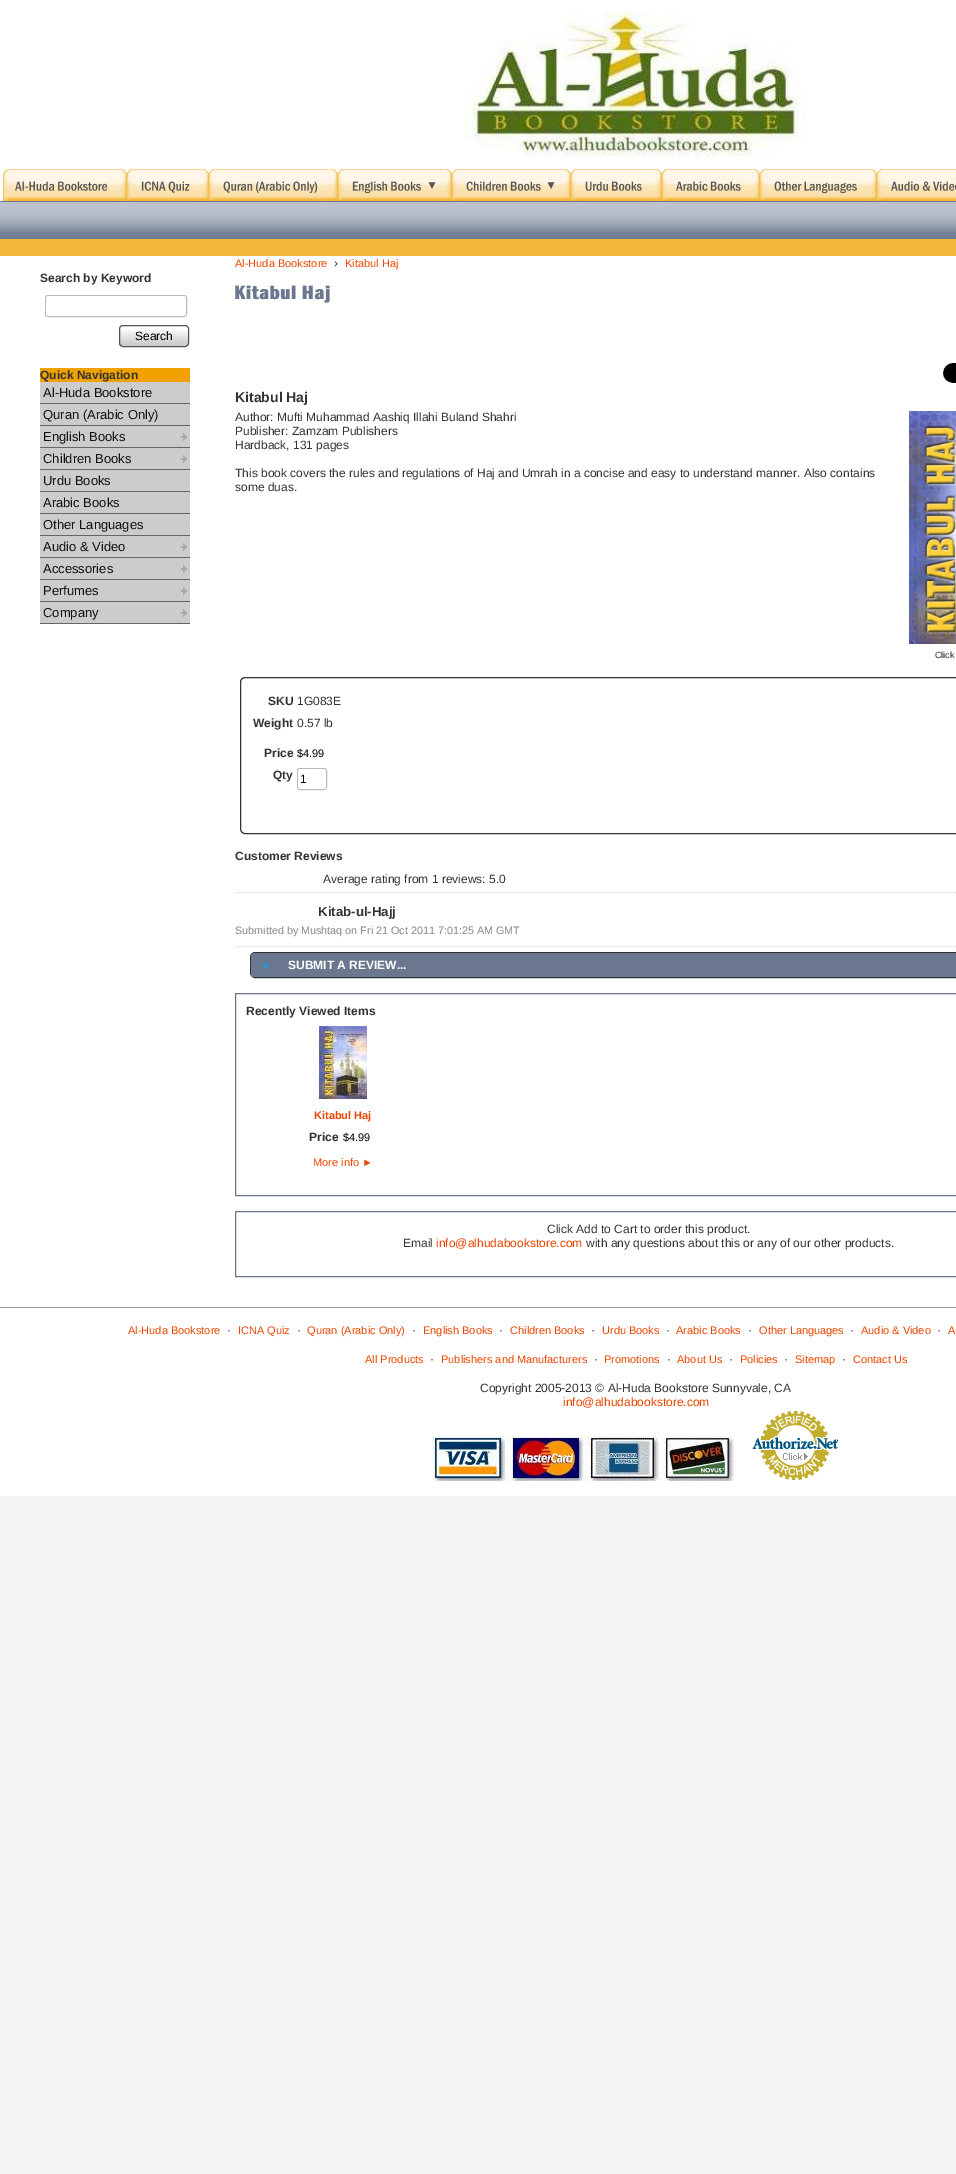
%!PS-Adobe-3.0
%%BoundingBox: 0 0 956 2174
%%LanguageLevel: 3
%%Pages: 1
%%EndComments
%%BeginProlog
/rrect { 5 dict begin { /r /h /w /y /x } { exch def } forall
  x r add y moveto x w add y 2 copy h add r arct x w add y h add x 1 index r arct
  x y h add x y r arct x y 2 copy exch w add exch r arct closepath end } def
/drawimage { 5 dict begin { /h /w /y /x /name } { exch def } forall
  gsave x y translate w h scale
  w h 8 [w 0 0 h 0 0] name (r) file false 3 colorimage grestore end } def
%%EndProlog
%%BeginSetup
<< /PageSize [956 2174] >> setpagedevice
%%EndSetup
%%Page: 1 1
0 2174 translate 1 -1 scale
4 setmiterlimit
0.961 setgray
0 0 956 2174 rectfill
1 setgray
0 0 956 1496 rectfill
(images/1.raw) 464 12 342 145 drawimage
0.416 0.467 0.561 setrgbcolor
0 201 956 1 rectfill
(images/2.raw) 3 169 123 32 drawimage
(images/3.raw) 126 169 82 32 drawimage
(images/4.raw) 208 169 129 32 drawimage
(images/5.raw) 337 169 114 32 drawimage
(images/6.raw) 451 169 119 32 drawimage
(images/7.raw) 570 169 91 32 drawimage
(images/8.raw) 661 169 98 32 drawimage
(images/9.raw) 759 169 117 32 drawimage
(images/10.raw) 876 169 80 32 drawimage
(images/11.raw) 0 202 956 37 drawimage
0.957 0.722 0.239 setrgbcolor
0 239 956 17 rectfill
0.733 setgray
45.5 295.5 141 21 2.5 rrect stroke
1 setgray
46 296 140 20 3 rrect fill
(images/12.raw) 119 330 70 16 drawimage
0.333 setgray
119.5 325.5 69 21 3.5 rrect stroke
0.945 0.635 0 setrgbcolor
40 368 150 14 rectfill
0.8 setgray
40 382 150 21 rectfill
0.4 setgray
40 403 150 1 rectfill
0.8 setgray
40 404 150 21 rectfill
0.4 setgray
40 425 150 1 rectfill
0.8 setgray
40 426 150 21 rectfill
0.4 setgray
40 447 150 1 rectfill
(images/13.raw) 181 433 6 8 drawimage
0.8 setgray
40 448 150 21 rectfill
0.4 setgray
40 469 150 1 rectfill
(images/13.raw) 181 455 6 8 drawimage
0.8 setgray
40 470 150 21 rectfill
0.4 setgray
40 491 150 1 rectfill
0.8 setgray
40 492 150 21 rectfill
0.4 setgray
40 513 150 1 rectfill
0.8 setgray
40 514 150 21 rectfill
0.4 setgray
40 535 150 1 rectfill
0.8 setgray
40 536 150 21 rectfill
0.4 setgray
40 557 150 1 rectfill
(images/13.raw) 181 543 6 8 drawimage
0.8 setgray
40 558 150 21 rectfill
0.4 setgray
40 579 150 1 rectfill
(images/13.raw) 181 565 6 8 drawimage
0.8 setgray
40 580 150 21 rectfill
0.4 setgray
40 601 150 1 rectfill
(images/13.raw) 181 587 6 8 drawimage
0.8 setgray
40 602 150 21 rectfill
0.4 setgray
40 623 150 1 rectfill
(images/13.raw) 181 609 6 8 drawimage
(images/14.raw) 235 285 95 18 drawimage
(images/15.raw) 943 363 13 20 drawimage
(images/16.raw) 909 411 47 233 drawimage
0.2 setgray
240.5 677.5 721 156 4.5 rrect stroke
0.733 setgray
297.5 768.5 29 21 2.5 rrect stroke
1 setgray
298 769 28 20 3 rrect fill
0.867 setgray
[1 1] 0 setdash
newpath 235 892.5 moveto 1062 892.5 lineto stroke
newpath 235 946.5 moveto 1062 946.5 lineto stroke
0.2 setgray
[] 0 setdash
250.5 952.5 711 25 4.5 rrect stroke
0.416 0.467 0.561 setrgbcolor
newpath 255 953 moveto 956 953 lineto 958 953 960 955 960 957 curveto 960 977 lineto 251 977 lineto 251 957 lineto 251 955 253 953 255 953 curveto closepath fill
235.5 993.5 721 202 rectstroke
(images/17.raw) 319 1026 48 73 drawimage
235.5 1211.5 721 65 rectstroke
0.624 setgray
0 1307 956 1 rectfill
(images/18.raw) 432 1436 302 45 drawimage
(images/19.raw) 752 1411 86 69 drawimage
/LiberationSans-Bold [12 0 0 -12 0 0] selectfont
0.2 setgray
40 282 moveto (Search by Keyword) show
/LiberationSans-Regular [12 0 0 -12 0 0] selectfont
0 setgray
135 340 moveto (Search) show
/LiberationSans-Bold [12 0 0 -12 0 0] selectfont
0.2 setgray
40 379 moveto (Quick Navigation) show
/LiberationSans-Regular [13 0 0 -13 0 0] selectfont
0.067 setgray
43 397 moveto (Al-Huda Bookstore) show
43 419 moveto (Quran \(Arabic Only\)) show
43 441 moveto (English Books) show
43 463 moveto (Children Books) show
43 485 moveto (Urdu Books) show
43 507 moveto (Arabic Books) show
43 529 moveto (Other Languages) show
43 551 moveto (Audio & Video) show
43 573 moveto (Accessories) show
43 595 moveto (Perfumes) show
43 617 moveto (Company) show
/LiberationSans-Regular [11 0 0 -11 0 0] selectfont
0.922 0.275 0 setrgbcolor
235 267 moveto (Al-Huda Bookstore) show
/LiberationSans-Regular [12 0 0 -12 0 0] selectfont
0.2 setgray
334 267 moveto (›) show
/LiberationSans-Regular [11 0 0 -11 0 0] selectfont
0.922 0.275 0 setrgbcolor
345 267 moveto (Kitabul Haj) show
/LiberationSans-Bold [14 0 0 -14 0 0] selectfont
0.2 setgray
235 402 moveto (Kitabul Haj) show
/LiberationSans-Regular [12 0 0 -12 0 0] selectfont
235 421 moveto (Author: Mufti Muhammad Aashiq Illahi Buland Shahri) show
235 435 moveto (Publisher: Zamzam Publishers) show
235 449 moveto (Hardback, 131 pages) show
235 477 moveto (This book covers the rules and regulations of Haj and Umrah in a concise and easy to understand manner. Also contains) show
235 491 moveto (some duas.) show
/LiberationSans-Regular [9 0 0 -9 0 0] selectfont
935 658 moveto (Click) show
/LiberationSans-Bold [12 0 0 -12 0 0] selectfont
268 705 moveto (SKU) show
/LiberationSans-Regular [12 0 0 -12 0 0] selectfont
297 705 moveto (1G083E) show
/LiberationSans-Bold [12 0 0 -12 0 0] selectfont
253 727 moveto (Weight) show
/LiberationSans-Regular [12 0 0 -12 0 0] selectfont
297 727 moveto (0.57 lb) show
/LiberationSans-Bold [12 0 0 -12 0 0] selectfont
264 757 moveto (Price) show
/LiberationSans-Regular [11 0 0 -11 0 0] selectfont
0 setgray
297 757 moveto ($4.99) show
/LiberationSans-Bold [12 0 0 -12 0 0] selectfont
0.2 setgray
273 779 moveto (Qty) show
/LiberationSans-Regular [12 0 0 -12 0 0] selectfont
0 setgray
300 783 moveto (1) show
/LiberationSans-Bold [12 0 0 -12 0 0] selectfont
0.2 setgray
235 860 moveto (Customer Reviews) show
/LiberationSans-Regular [12 0 0 -12 0 0] selectfont
323 883 moveto (Average rating from 1 reviews: 5.0) show
/LiberationSans-Bold [13.25 0 0 -13.25 0 0] selectfont
318 916 moveto (Kitab-ul-Hajj) show
/LiberationSans-Regular [10.8 0 0 -10.8 0 0] selectfont
0.533 setgray
235 934 moveto (Submitted by Mushtaq on Fri 21 Oct 2011 7:01:25 AM GMT) show
/LiberationSans-Bold [12 0 0 -12 0 0] selectfont
0.204 0.561 0.792 setrgbcolor
261 969 moveto (►) show
1 setgray
288 969 moveto (SUBMIT A REVIEW...) show
0.2 setgray
246 1015 moveto (Recently Viewed Items) show
/LiberationSans-Bold [11 0 0 -11 0 0] selectfont
0.922 0.275 0 setrgbcolor
314 1119 moveto (Kitabul Haj) show
/LiberationSans-Bold [12 0 0 -12 0 0] selectfont
0.2 setgray
309 1141 moveto (Price) show
/LiberationSans-Regular [11 0 0 -11 0 0] selectfont
0 setgray
343 1141 moveto ($4.99) show
0.922 0.275 0 setrgbcolor
313 1166 moveto (More info ►) show
/LiberationSans-Regular [12 0 0 -12 0 0] selectfont
0.2 setgray
547 1233 moveto (Click Add to Cart to order this product.) show
403 1247 moveto (Email) show
0.922 0.275 0 setrgbcolor
436 1247 moveto (info@alhudabookstore.com) show
0.2 setgray
586 1247 moveto (with any questions about this or any of our other products.) show
/LiberationSans-Regular [11 0 0 -11 0 0] selectfont
0.922 0.275 0 setrgbcolor
128 1334 moveto (Al-Huda Bookstore) show
/LiberationSans-Regular [12 0 0 -12 0 0] selectfont
0.2 setgray
227 1334 moveto (·) show
/LiberationSans-Regular [11 0 0 -11 0 0] selectfont
0.922 0.275 0 setrgbcolor
238 1334 moveto (ICNA Quiz) show
/LiberationSans-Regular [12 0 0 -12 0 0] selectfont
0.2 setgray
297 1334 moveto (·) show
/LiberationSans-Regular [11 0 0 -11 0 0] selectfont
0.922 0.275 0 setrgbcolor
307 1334 moveto (Quran \(Arabic Only\)) show
/LiberationSans-Regular [12 0 0 -12 0 0] selectfont
0.2 setgray
412 1334 moveto (·) show
/LiberationSans-Regular [11 0 0 -11 0 0] selectfont
0.922 0.275 0 setrgbcolor
423 1334 moveto (English Books) show
/LiberationSans-Regular [12 0 0 -12 0 0] selectfont
0.2 setgray
499 1334 moveto (·) show
/LiberationSans-Regular [11 0 0 -11 0 0] selectfont
0.922 0.275 0 setrgbcolor
510 1334 moveto (Children Books) show
/LiberationSans-Regular [12 0 0 -12 0 0] selectfont
0.2 setgray
591 1334 moveto (·) show
/LiberationSans-Regular [11 0 0 -11 0 0] selectfont
0.922 0.275 0 setrgbcolor
602 1334 moveto (Urdu Books) show
/LiberationSans-Regular [12 0 0 -12 0 0] selectfont
0.2 setgray
666 1334 moveto (·) show
/LiberationSans-Regular [11 0 0 -11 0 0] selectfont
0.922 0.275 0 setrgbcolor
676 1334 moveto (Arabic Books) show
/LiberationSans-Regular [12 0 0 -12 0 0] selectfont
0.2 setgray
748 1334 moveto (·) show
/LiberationSans-Regular [11 0 0 -11 0 0] selectfont
0.922 0.275 0 setrgbcolor
759 1334 moveto (Other Languages) show
/LiberationSans-Regular [12 0 0 -12 0 0] selectfont
0.2 setgray
850 1334 moveto (·) show
/LiberationSans-Regular [11 0 0 -11 0 0] selectfont
0.922 0.275 0 setrgbcolor
861 1334 moveto (Audio & Video) show
/LiberationSans-Regular [12 0 0 -12 0 0] selectfont
0.2 setgray
937 1334 moveto (·) show
/LiberationSans-Regular [11 0 0 -11 0 0] selectfont
0.922 0.275 0 setrgbcolor
948 1334 moveto (A) show
365 1363 moveto (All Products) show
/LiberationSans-Regular [12 0 0 -12 0 0] selectfont
0.2 setgray
430 1363 moveto (·) show
/LiberationSans-Regular [11 0 0 -11 0 0] selectfont
0.922 0.275 0 setrgbcolor
441 1363 moveto (Publishers and Manufacturers) show
/LiberationSans-Regular [12 0 0 -12 0 0] selectfont
0.2 setgray
594 1363 moveto (·) show
/LiberationSans-Regular [11 0 0 -11 0 0] selectfont
0.922 0.275 0 setrgbcolor
604 1363 moveto (Promotions) show
/LiberationSans-Regular [12 0 0 -12 0 0] selectfont
0.2 setgray
667 1363 moveto (·) show
/LiberationSans-Regular [11 0 0 -11 0 0] selectfont
0.922 0.275 0 setrgbcolor
677 1363 moveto (About Us) show
/LiberationSans-Regular [12 0 0 -12 0 0] selectfont
0.2 setgray
729 1363 moveto (·) show
/LiberationSans-Regular [11 0 0 -11 0 0] selectfont
0.922 0.275 0 setrgbcolor
740 1363 moveto (Policies) show
/LiberationSans-Regular [12 0 0 -12 0 0] selectfont
0.2 setgray
784 1363 moveto (·) show
/LiberationSans-Regular [11 0 0 -11 0 0] selectfont
0.922 0.275 0 setrgbcolor
795 1363 moveto (Sitemap) show
/LiberationSans-Regular [12 0 0 -12 0 0] selectfont
0.2 setgray
842 1363 moveto (·) show
/LiberationSans-Regular [11 0 0 -11 0 0] selectfont
0.922 0.275 0 setrgbcolor
853 1363 moveto (Contact Us) show
/LiberationSans-Regular [12 0 0 -12 0 0] selectfont
0.2 setgray
480 1392 moveto (Copyright 2005-2013 © Al-Huda Bookstore Sunnyvale, CA) show
0.922 0.275 0 setrgbcolor
563 1406 moveto (info@alhudabookstore.com) show
showpage
%%EOF
